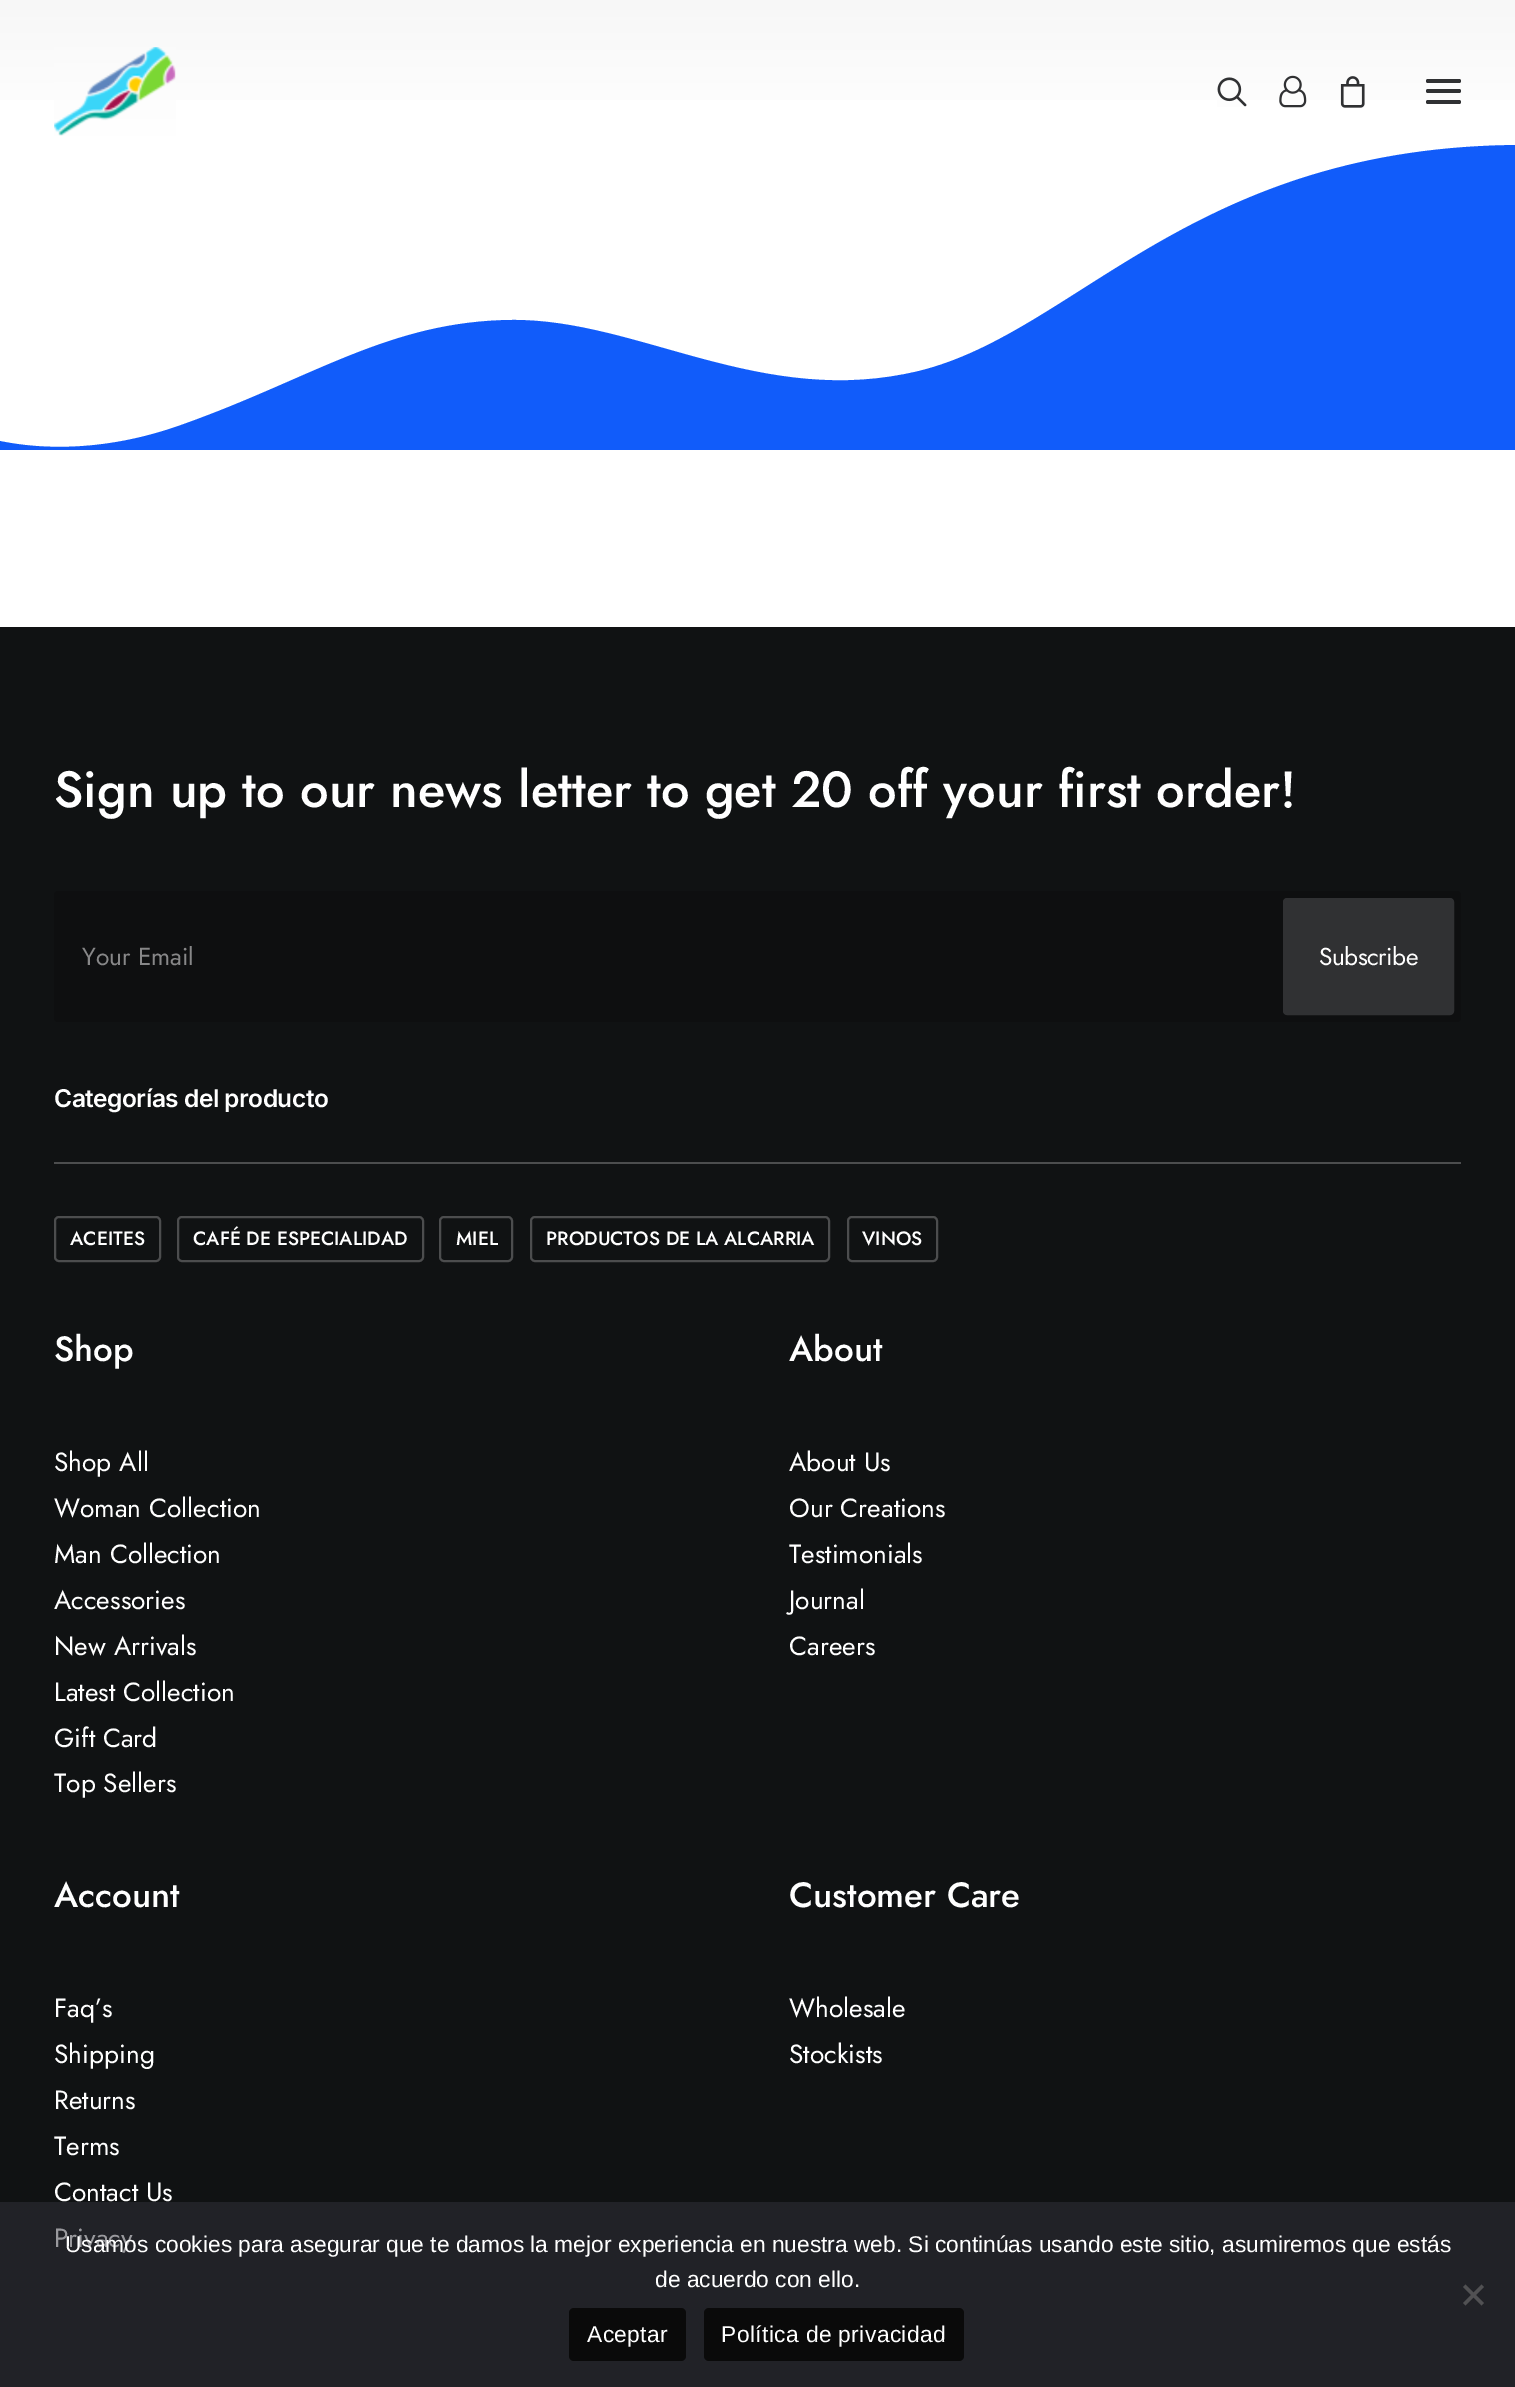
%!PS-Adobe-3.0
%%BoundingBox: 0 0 1515 2387
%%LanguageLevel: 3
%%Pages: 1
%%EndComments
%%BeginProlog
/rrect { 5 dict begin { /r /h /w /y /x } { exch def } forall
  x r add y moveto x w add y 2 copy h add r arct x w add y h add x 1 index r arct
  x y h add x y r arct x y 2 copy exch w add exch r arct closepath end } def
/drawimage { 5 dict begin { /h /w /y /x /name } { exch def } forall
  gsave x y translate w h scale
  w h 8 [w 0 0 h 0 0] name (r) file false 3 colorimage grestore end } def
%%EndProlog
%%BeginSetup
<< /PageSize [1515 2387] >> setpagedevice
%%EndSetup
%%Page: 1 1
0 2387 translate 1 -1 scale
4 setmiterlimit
1 setgray
0 0 1515 2387 rectfill
gsave newpath 0 0 moveto 1515 0 lineto 1515 100 lineto 0 100 lineto closepath clip newpath
<< /ShadingType 2 /ColorSpace /DeviceRGB /Coords [758 147 758 -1.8] /Extend [true true] /Function << /FunctionType 2 /Domain [0 1] /C0 [1 1 1] /C1 [0.969 0.969 0.969] /N 1 >> >> shfill grestore
(images/1.raw) 54 47 122 89 drawimage
(images/2.raw) 1217 77 30 30 drawimage
(images/3.raw) 1279 75 28 33 drawimage
(images/4.raw) 1340 76 25 32 drawimage
0.188 0.192 0.2 setrgbcolor
1426 89 35 4 2 rrect fill
1426 79 35 4 2 rrect fill
1426 100 35 4 2 rrect fill
0.067 0.361 0.98 setrgbcolor
newpath 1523 452 moveto 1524 145 lineto 1193 145 1078 332 919 371 curveto 762 409 639 319 512 320 curveto 390 321 313 378 184 424 curveto 91 458 19 446 -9 439 curveto -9 452 lineto closepath fill
1 setgray
0 450 1515 2 rectfill
0.063 0.071 0.075 setrgbcolor
0 627 1515 1575 rectfill
0.129 0.133 0.153 setrgbcolor
0 2202 1515 185 rectfill
0.055 0.059 0.063 setrgbcolor
54 891 1407 131 4 rrect fill
0.188 0.192 0.2 setrgbcolor
1284 899 169 115 3 rrect gsave fill grestore
2 setlinewidth
stroke
0.298 0.302 0.306 setrgbcolor
54 1162 1407 2 rectfill
55 1217 105 44 4 rrect stroke
178 1217 245 44 4 rrect stroke
440 1217 72 44 4 rrect stroke
531 1217 298 44 4 rrect stroke
848 1217 89 44 4 rrect stroke
0.318 0.318 0.325 setrgbcolor
newpath 1481.5 2284.5 moveto 1484 2287 lineto 1465.5 2305.5 lineto 1463 2303 lineto closepath fill
newpath 1463 2287 moveto 1465.5 2284.5 lineto 1484 2303 lineto 1481.5 2305.5 lineto closepath fill
0.039 setgray
569 2308 117 53 5 rrect fill
704 2308 260 53 5 rrect fill
/Jost-Medium [50.75 0 0 -50.75 0 0] selectfont
1 setgray
54 807 moveto (Sign up to our news letter to get 20 off your first order!) show
/Jost-Regular [24.5 0 0 -24.5 0 0] selectfont
0.529 0.529 0.533 setrgbcolor
82 965 moveto (Your Email) show
1 setgray
1319 965 moveto -0.5 0 (Subscribe) ashow
/Inter-SemiBold [24.5 0 0 -24.5 0 0] selectfont
54 1107 moveto -0.5 0 (Categorías del producto) ashow
/Jost-Medium [19.25 0 0 -19.25 0 0] selectfont
70 1245 moveto (ACEITES) show
193 1245 moveto (CAFÉ DE ESPECIALIDAD) show
456 1245 moveto (MIEL) show
546 1245 moveto (PRODUCTOS DE LA ALCARRIA) show
862 1245 moveto (VINOS) show
/Jost-Medium [35 0 0 -35 0 0] selectfont
54 1361 moveto (Shop) show
/Jost-Regular [26.25 0 0 -26.25 0 0] selectfont
54 1471 moveto (Shop All) show
54 1517 moveto (Woman Collection) show
54 1563 moveto (Man Collection) show
54 1609 moveto (Accessories) show
54 1655 moveto (New Arrivals) show
54 1701 moveto (Latest Collection) show
54 1747 moveto (Gift Card) show
54 1792 moveto (Top Sellers) show
/Jost-Medium [35 0 0 -35 0 0] selectfont
789 1361 moveto (About) show
/Jost-Regular [26.25 0 0 -26.25 0 0] selectfont
789 1471 moveto (About Us) show
789 1517 moveto (Our Creations) show
789 1563 moveto (Testimonials) show
789 1609 moveto (Journal) show
789 1655 moveto (Careers) show
/Jost-Medium [35 0 0 -35 0 0] selectfont
54 1907 moveto (Account) show
/Jost-Regular [26.25 0 0 -26.25 0 0] selectfont
54 2017 moveto (Faq’s) show
54 2063 moveto (Shipping) show
54 2109 moveto (Returns) show
54 2155 moveto (Terms) show
54 2201 moveto (Contact Us) show
0.6 0.6 0.616 setrgbcolor
54 2247 moveto (Privacy) show
/Jost-Medium [35 0 0 -35 0 0] selectfont
1 setgray
789 1907 moveto (Customer Care) show
/Jost-Regular [26.25 0 0 -26.25 0 0] selectfont
789 2017 moveto (Wholesale) show
789 2063 moveto (Stockists) show
/LiberationSans-Regular [22.75 0 0 -22.75 0 0] selectfont
65 2252 moveto (Usamos cookies para asegurar que te damos la mejor experiencia en nuestra web. Si continúas usando este sitio, asumiremos que estás) show
655 2287 moveto (de acuerdo con ello.) show
587 2342 moveto 0.4 0 (Aceptar) ashow
721 2342 moveto 0.4 0 (Política de privacidad) ashow
showpage
%%EOF
